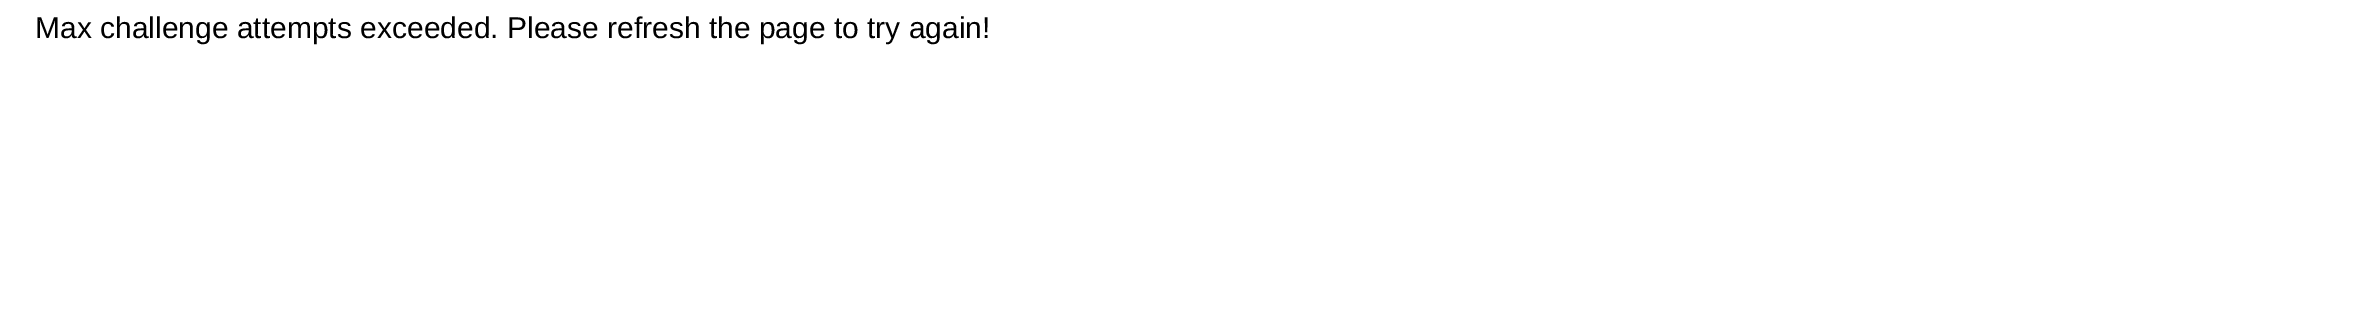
%!PS-Adobe-3.0
%%BoundingBox: 0 0 2377 320
%%LanguageLevel: 3
%%Pages: 1
%%EndComments
%%BeginProlog
%%EndProlog
%%BeginSetup
<< /PageSize [2377 320] >> setpagedevice
%%EndSetup
%%Page: 1 1
0 320 translate 1 -1 scale
4 setmiterlimit
1 setgray
0 0 2377 320 rectfill
/LiberationSans-Regular [30 0 0 -30 0 0] selectfont
0 setgray
35 38 moveto (Max challenge attempts exceeded. Please refresh the page to try again!) show
showpage
%%EOF
